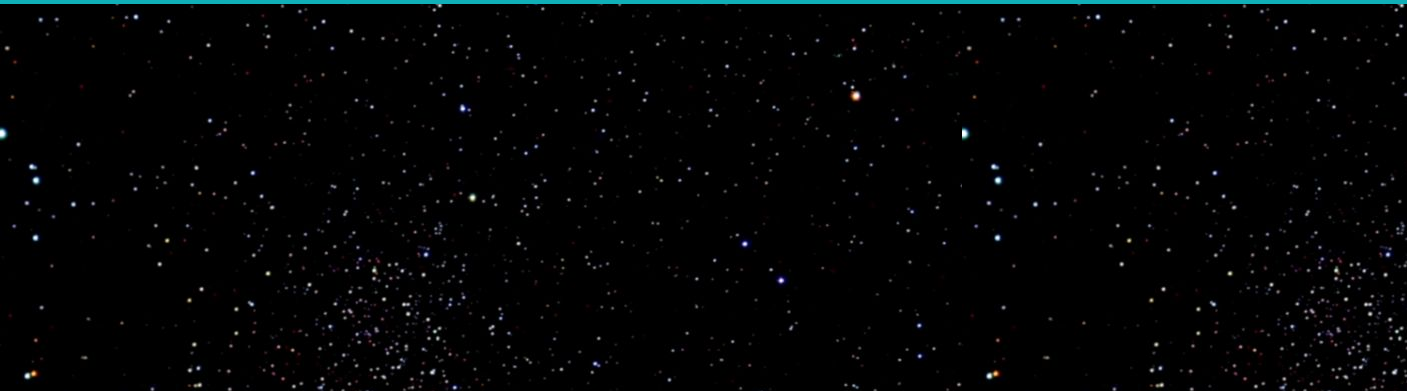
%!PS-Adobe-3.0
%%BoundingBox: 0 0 1407 391
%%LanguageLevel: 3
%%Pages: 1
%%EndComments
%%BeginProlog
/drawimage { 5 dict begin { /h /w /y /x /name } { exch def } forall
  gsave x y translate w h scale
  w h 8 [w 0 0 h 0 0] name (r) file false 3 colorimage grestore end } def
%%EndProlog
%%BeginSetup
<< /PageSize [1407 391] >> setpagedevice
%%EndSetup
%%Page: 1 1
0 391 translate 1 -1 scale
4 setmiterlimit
1 setgray
0 0 1407 391 rectfill
(images/1.raw) 0 4 1407 387 drawimage
0.063 0.69 0.722 setrgbcolor
0 0 1407 4 rectfill
showpage
%%EOF
